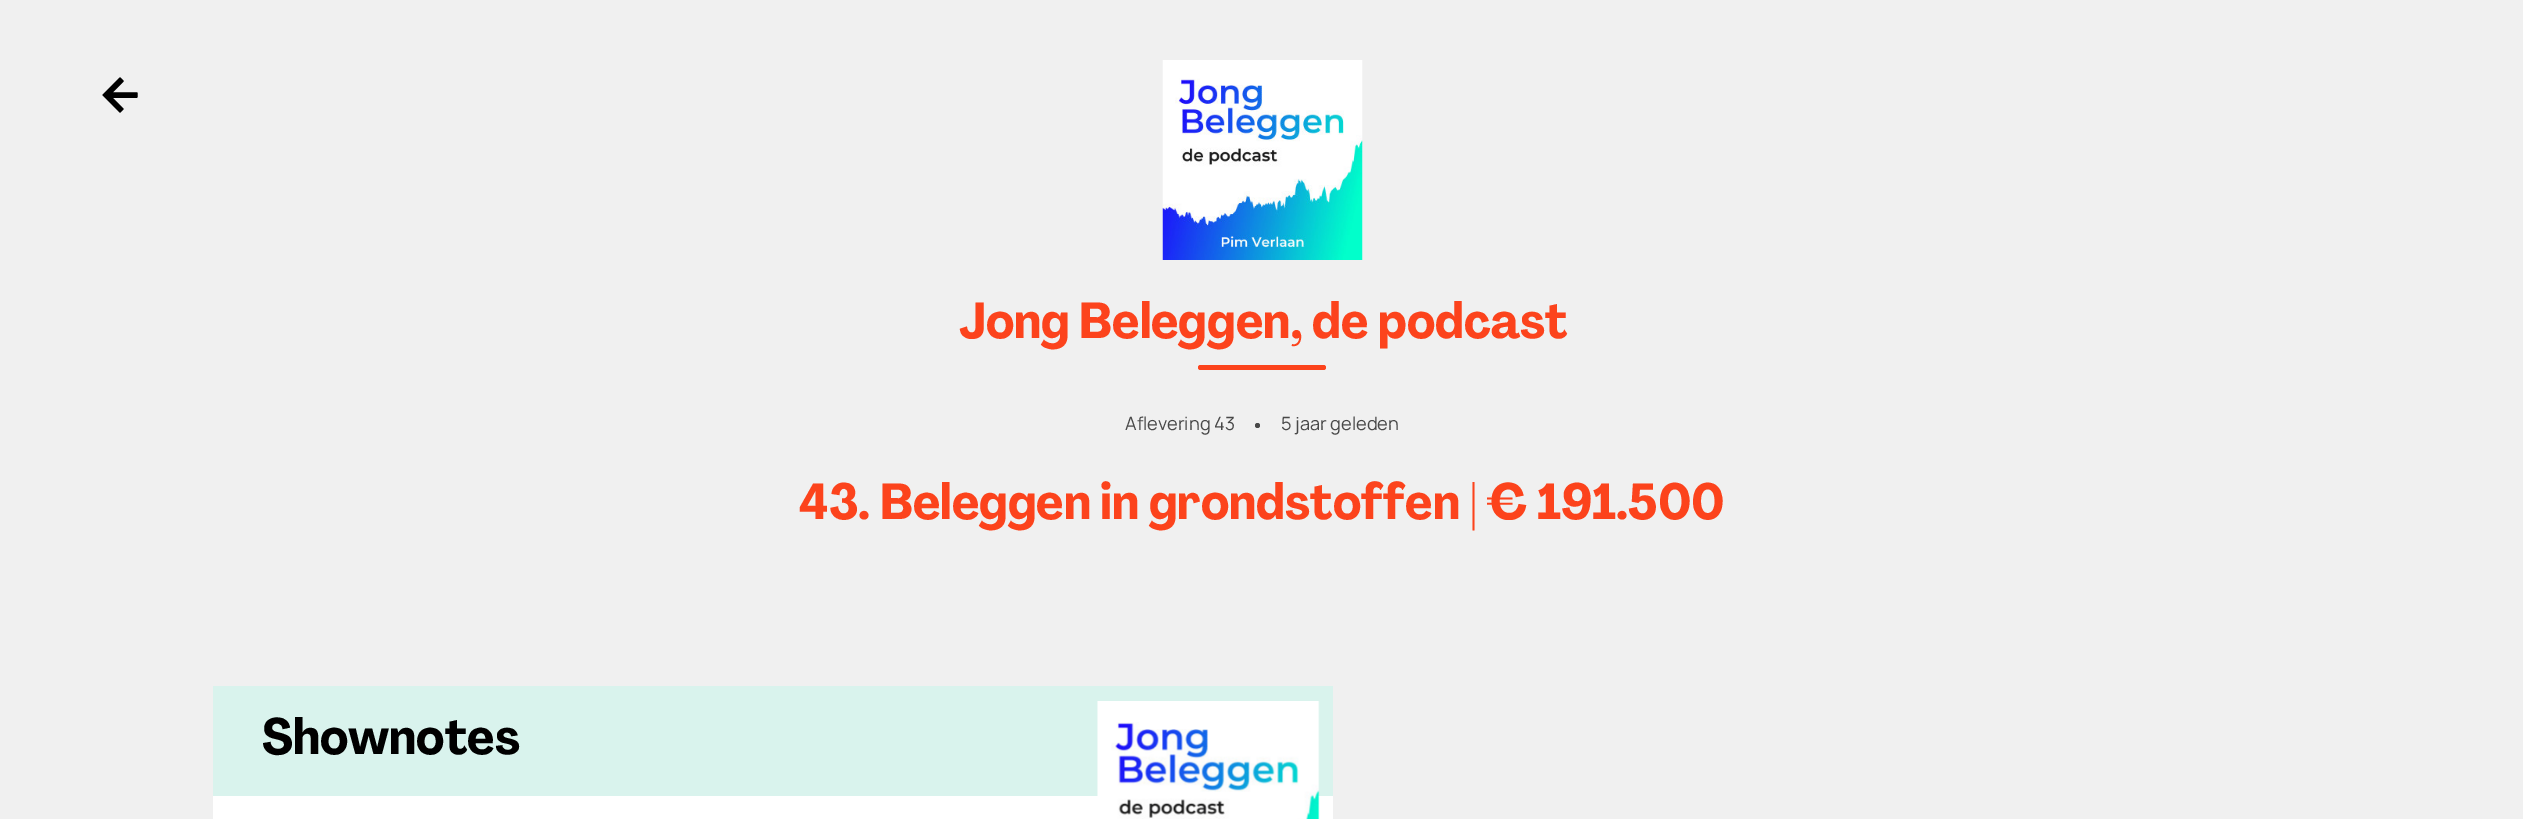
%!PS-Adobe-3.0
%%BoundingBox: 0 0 2523 819
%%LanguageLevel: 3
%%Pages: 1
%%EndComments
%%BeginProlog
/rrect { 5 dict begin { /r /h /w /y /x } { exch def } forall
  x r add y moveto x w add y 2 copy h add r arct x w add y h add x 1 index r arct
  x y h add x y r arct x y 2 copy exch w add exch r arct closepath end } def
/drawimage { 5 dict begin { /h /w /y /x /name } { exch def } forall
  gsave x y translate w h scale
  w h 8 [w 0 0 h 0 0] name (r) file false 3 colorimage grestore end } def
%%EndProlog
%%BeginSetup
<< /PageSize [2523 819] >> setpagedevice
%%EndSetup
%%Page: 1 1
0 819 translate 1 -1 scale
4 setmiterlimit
0.941 setgray
0 0 2523 819 rectfill
(images/1.raw) 102 77 36 36 drawimage
(images/2.raw) 1162 60 201 200 drawimage
0.988 0.263 0.11 setrgbcolor
1198 365 128 5 2.5 rrect fill
0.282 setgray
newpath 1257.5 425.5 2.5 0 360 arc closepath fill
1 setgray
213 796 1120 23 rectfill
0.851 0.953 0.929 setrgbcolor
213 686 1120 110 rectfill
(images/3.raw) 1097 701 223 118 drawimage
/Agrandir-Bold [50 0 0 -50 0 0] selectfont
0.988 0.263 0.11 setrgbcolor
959 338 moveto (Jong Beleggen, de podcast) show
/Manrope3-Regular [17.5 0 0 -17.5 0 0] selectfont
0.282 setgray
1125 430 moveto (Aflevering 43) show
1281 430 moveto (5 jaar geleden) show
/Agrandir-Bold [50 0 0 -50 0 0] selectfont
0.988 0.263 0.11 setrgbcolor
799 519 moveto (43. Beleggen in grondstoffen | € 191.500) show
0 setgray
262 754 moveto (Shownotes) show
showpage
%%EOF
